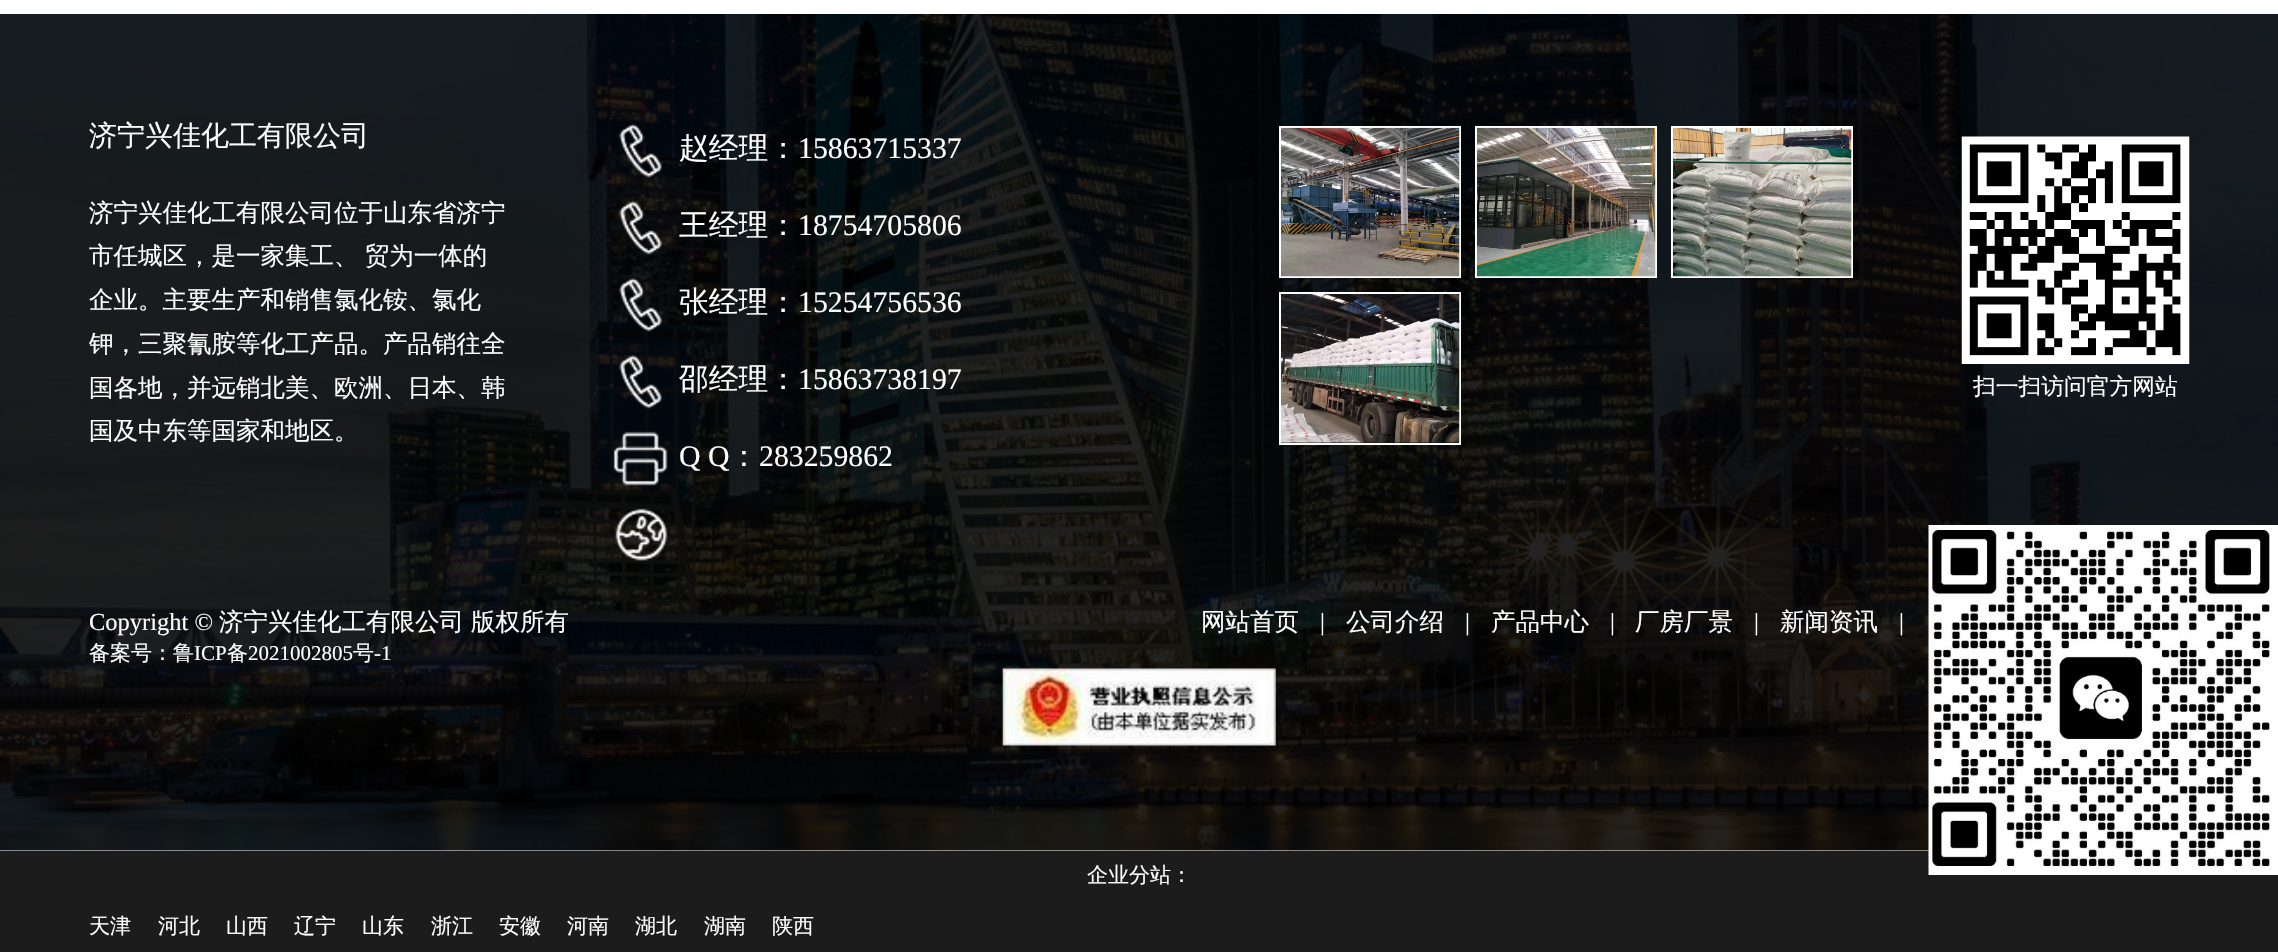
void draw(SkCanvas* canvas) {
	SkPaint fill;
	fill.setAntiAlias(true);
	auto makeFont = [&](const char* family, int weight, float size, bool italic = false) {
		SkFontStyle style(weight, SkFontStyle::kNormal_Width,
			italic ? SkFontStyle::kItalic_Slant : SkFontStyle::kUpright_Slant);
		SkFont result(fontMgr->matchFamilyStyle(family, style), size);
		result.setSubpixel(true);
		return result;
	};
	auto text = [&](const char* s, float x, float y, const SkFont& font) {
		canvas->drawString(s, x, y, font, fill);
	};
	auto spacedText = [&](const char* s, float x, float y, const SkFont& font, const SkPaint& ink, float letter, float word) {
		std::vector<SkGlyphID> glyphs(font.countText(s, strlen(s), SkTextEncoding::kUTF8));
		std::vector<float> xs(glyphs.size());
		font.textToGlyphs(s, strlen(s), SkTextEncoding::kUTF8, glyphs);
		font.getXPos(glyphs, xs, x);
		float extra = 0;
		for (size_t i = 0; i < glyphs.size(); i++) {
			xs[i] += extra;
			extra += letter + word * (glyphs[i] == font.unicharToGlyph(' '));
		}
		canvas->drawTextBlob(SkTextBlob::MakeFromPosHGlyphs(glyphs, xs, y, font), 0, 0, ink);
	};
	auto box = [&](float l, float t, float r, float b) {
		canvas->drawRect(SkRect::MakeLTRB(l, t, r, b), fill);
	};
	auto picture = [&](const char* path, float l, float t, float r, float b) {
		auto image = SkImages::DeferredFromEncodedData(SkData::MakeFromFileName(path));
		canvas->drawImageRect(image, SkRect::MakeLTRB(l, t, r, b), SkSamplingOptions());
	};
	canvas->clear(0xFFFFFFFF);
	picture("image0.png", 0, 14, 2278, 851);
	picture("image1.png", 619, 124, 662, 178);
	picture("image2.png", 619, 201, 662, 255);
	picture("image3.png", 619, 278, 662, 332);
	picture("image4.png", 619, 355, 662, 409);
	picture("image5.png", 613, 431, 668, 486);
	picture("image6.png", 615, 508, 668, 561);
	fill.setStyle(SkPaint::kStroke_Style);
	fill.setStrokeWidth(2);
	fill.setColor(0xFFFFFFFF);
	canvas->drawRect(SkRect::MakeLTRB(1280, 127, 1460, 277), fill);
	picture("image7.png", 1281, 127, 1460, 277);
	canvas->drawRect(SkRect::MakeLTRB(1476, 127, 1656, 277), fill);
	picture("image8.png", 1477, 127, 1656, 277);
	canvas->drawRect(SkRect::MakeLTRB(1672, 127, 1852, 277), fill);
	picture("image9.png", 1673, 127, 1852, 277);
	canvas->drawRect(SkRect::MakeLTRB(1280, 293, 1460, 444), fill);
	picture("image10.png", 1281, 294, 1460, 443);
	picture("image11.png", 1961, 136, 2190, 364);
	picture("image12.png", 1002, 668, 1276, 746);
	fill.setStyle(SkPaint::kFill_Style);
	fill.setColor(0xFF1C1C1C);
	box(0, 851, 2278, 952);
	picture("image13.png", 1928, 525, 2278, 875);
	auto font1 = makeFont("WenQuanYi Zen Hei", 500, 28);
	fill.setColor(0xFFFFFFFF);
	text("济宁兴佳化工有限公司", 89, 145, font1);
	auto font2 = makeFont("WenQuanYi Zen Hei", 500, 24.5f);
	text("济宁兴佳化工有限公司位于山东省济宁", 89, 221, font2);
	spacedText("市任城区，是一家集工、 贸为一体的", 89, 264, font2, fill, 0, -1);
	text("企业。主要生产和销售氯化铵、氯化", 89, 308, font2);
	text("钾，三聚氰胺等化工产品。产品销往全", 89, 352, font2);
	text("国各地，并远销北美、欧洲、日本、韩", 89, 396, font2);
	text("国及中东等国家和地区。", 89, 439, font2);
	auto font3 = makeFont("WenQuanYi Zen Hei", 500, 29.75f);
	text("赵经理：", 679, 158, font3);
	auto font4 = makeFont("Liberation Serif", 400, 29.75f);
	text("15863715337", 798, 158, font4);
	text("王经理：", 679, 235, font3);
	text("18754705806", 798, 235, font4);
	text("张经理：", 679, 312, font3);
	text("15254756536", 798, 312, font4);
	text("邵经理：", 679, 389, font3);
	text("15863738197", 798, 389, font4);
	text("Q Q", 679, 466, font4);
	text("：", 729, 466, font3);
	text("283259862", 759, 466, font4);
	auto font5 = makeFont("WenQuanYi Zen Hei", 500, 22.75f);
	text("扫一扫访问官方网站", 1973, 394, font5);
	auto font6 = makeFont("Liberation Serif", 400, 24.5f);
	text("Copyright ©", 89, 630, font6);
	text("济宁兴佳化工有限公司", 219, 630, font2);
	text("版权所有", 471, 630, font2);
	auto font7 = makeFont("WenQuanYi Zen Hei", 500, 21);
	text("备案号：鲁", 89, 660, font7);
	auto font8 = makeFont("Liberation Serif", 400, 21);
	text("ICP", 194, 660, font8);
	text("备", 227, 660, font7);
	text("2021002805", 248, 660, font8);
	text("号", 353, 660, font7);
	text("-1", 374, 660, font8);
	text("网站首页", 1201, 630, font2);
	text("|", 1320, 630, font6);
	text("公司介绍", 1346, 630, font2);
	text("|", 1465, 630, font6);
	text("产品中心", 1491, 630, font2);
	text("|", 1610, 630, font6);
	text("厂房厂景", 1635, 630, font2);
	text("|", 1754, 630, font6);
	text("新闻资讯", 1780, 630, font2);
	text("|", 1899, 630, font6);
	text("企业分站：", 1087, 882, font7);
	text("天津", 89, 933, font7);
	text("河北", 158, 933, font7);
	text("山西", 226, 933, font7);
	text("辽宁", 294, 933, font7);
	text("山东", 362, 933, font7);
	text("浙江", 431, 933, font7);
	text("安徽", 499, 933, font7);
	text("河南", 567, 933, font7);
	text("湖北", 635, 933, font7);
	text("湖南", 704, 933, font7);
	text("陕西", 772, 933, font7);
}
